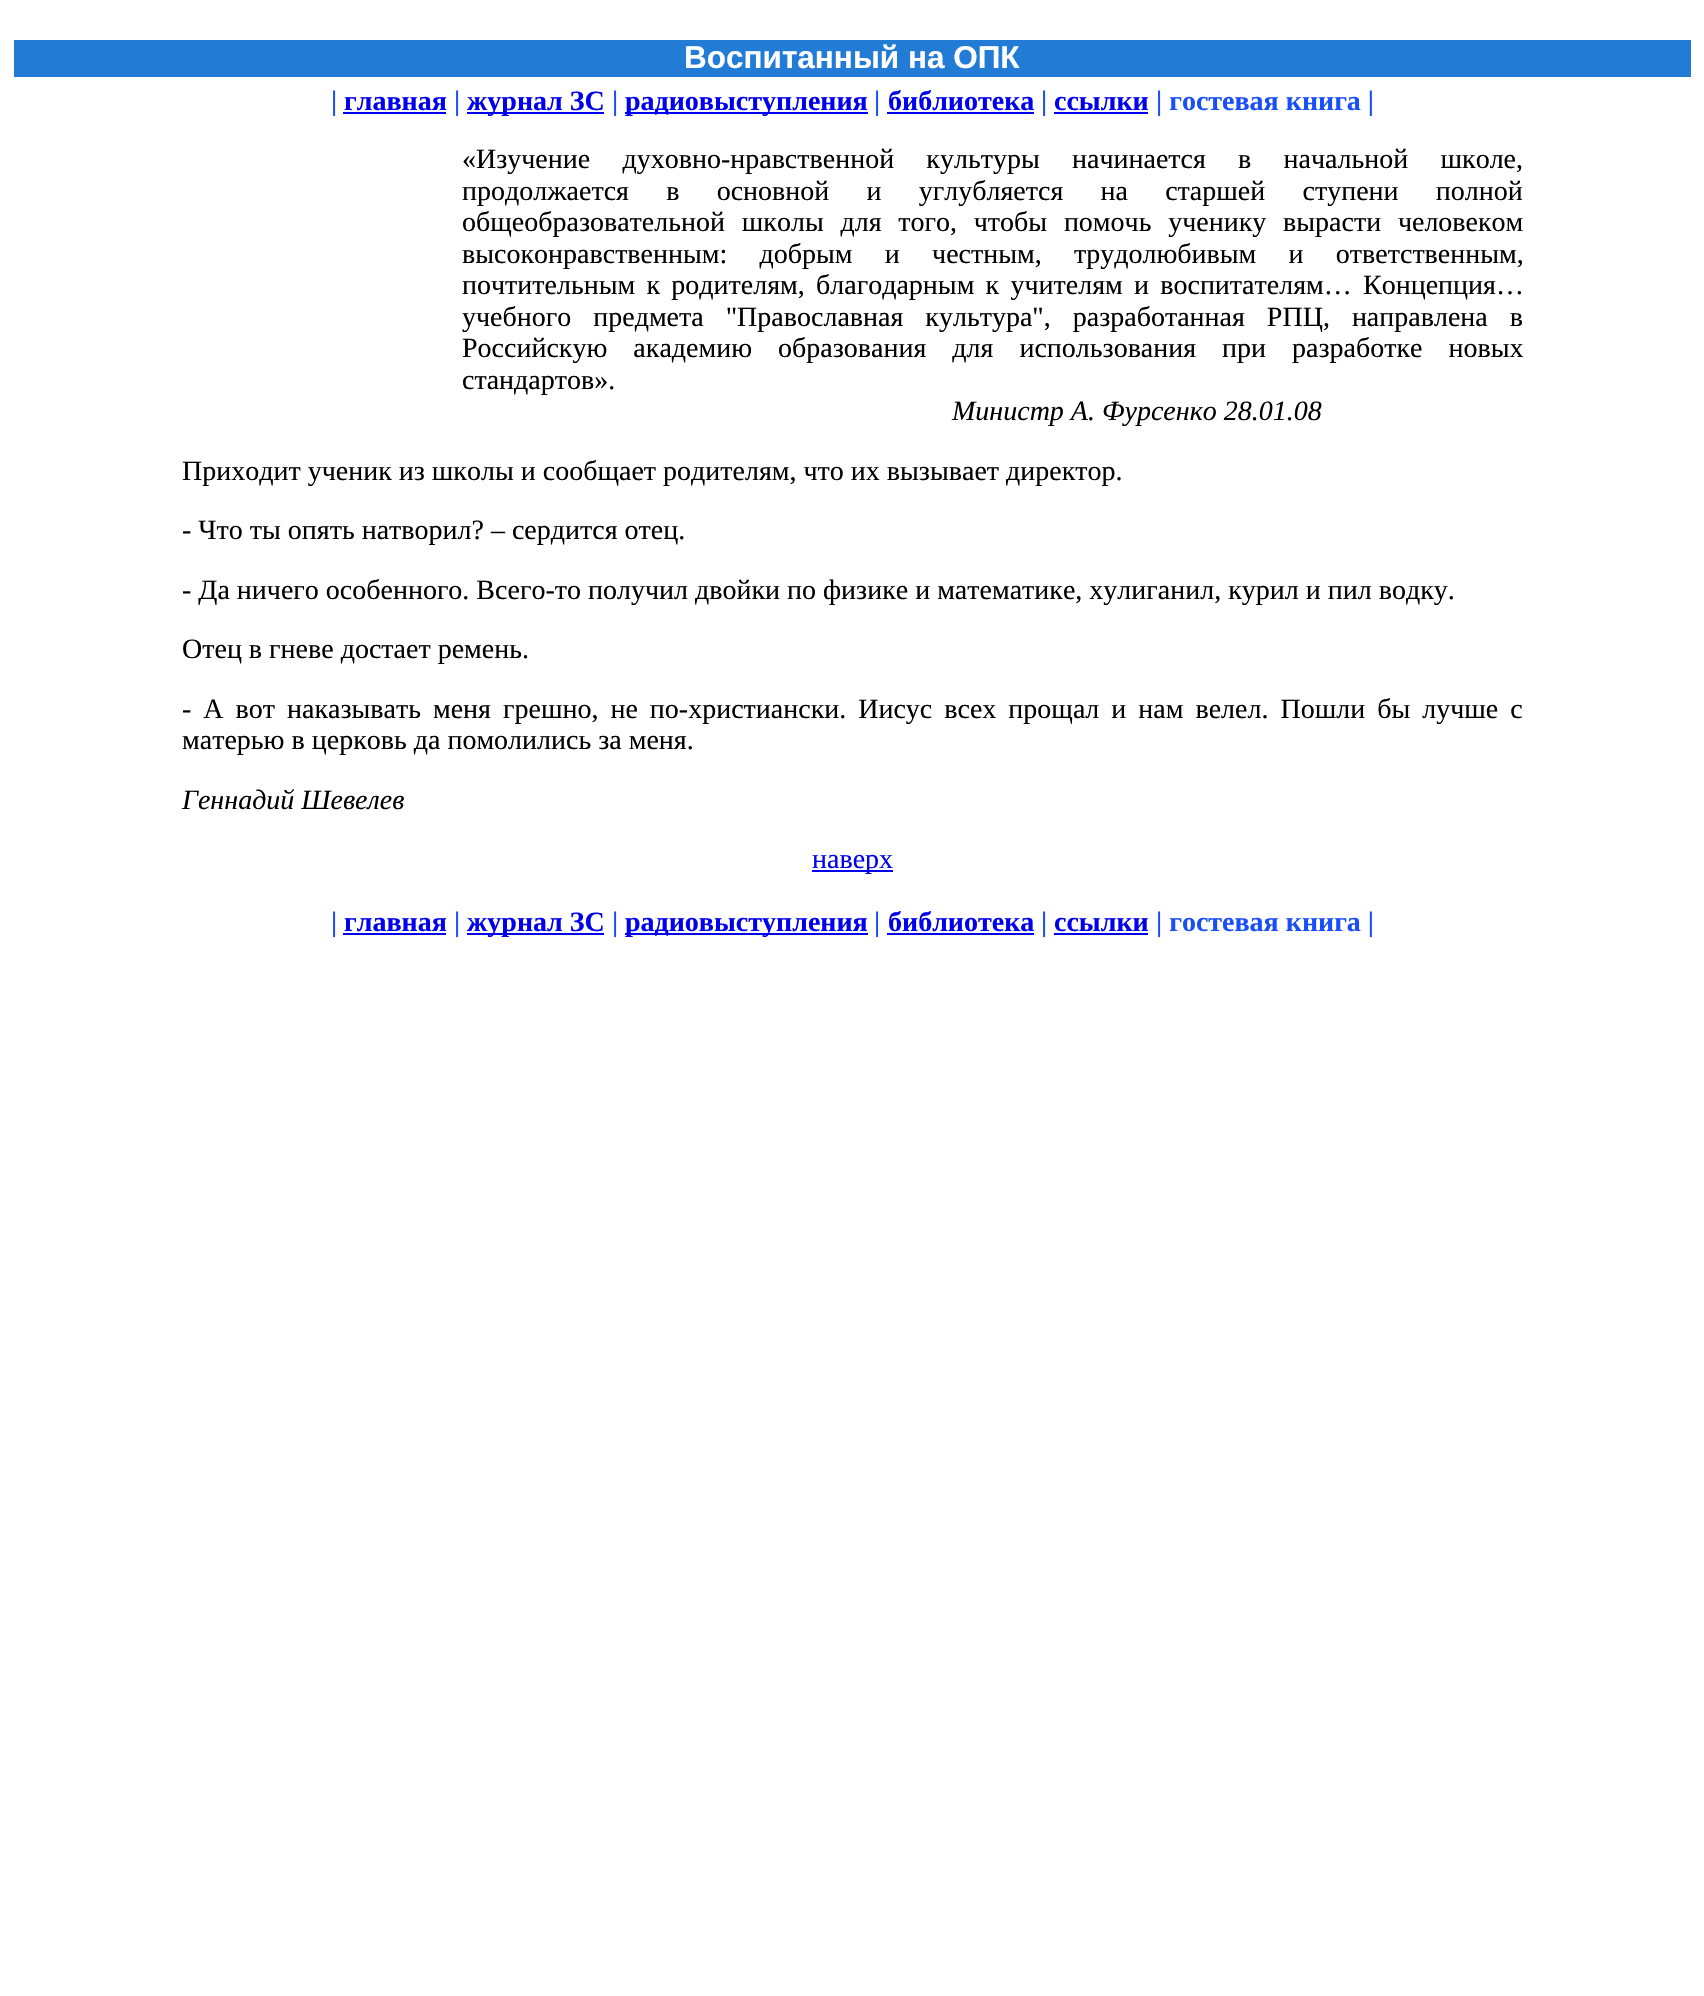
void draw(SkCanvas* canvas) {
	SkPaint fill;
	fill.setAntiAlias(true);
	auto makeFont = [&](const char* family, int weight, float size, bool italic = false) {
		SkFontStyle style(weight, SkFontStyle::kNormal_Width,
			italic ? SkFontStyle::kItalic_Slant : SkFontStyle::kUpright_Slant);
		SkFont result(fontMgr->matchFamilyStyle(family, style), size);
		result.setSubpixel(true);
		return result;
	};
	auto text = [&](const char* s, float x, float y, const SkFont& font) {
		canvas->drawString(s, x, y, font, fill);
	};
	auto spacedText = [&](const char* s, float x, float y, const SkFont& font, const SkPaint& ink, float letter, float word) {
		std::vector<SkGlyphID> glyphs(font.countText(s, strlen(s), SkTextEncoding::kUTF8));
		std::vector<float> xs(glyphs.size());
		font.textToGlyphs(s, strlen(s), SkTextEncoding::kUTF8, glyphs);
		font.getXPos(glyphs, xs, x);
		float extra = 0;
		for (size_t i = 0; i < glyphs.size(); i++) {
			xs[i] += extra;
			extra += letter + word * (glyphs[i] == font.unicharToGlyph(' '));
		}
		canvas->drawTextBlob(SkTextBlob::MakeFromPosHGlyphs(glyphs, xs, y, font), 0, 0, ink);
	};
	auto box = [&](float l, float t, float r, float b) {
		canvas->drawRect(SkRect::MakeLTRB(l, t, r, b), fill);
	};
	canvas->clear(0xFFFFFFFF);
	fill.setColor(0xFF227BD5);
	box(14, 40, 1691, 77);
	fill.setColor(0xFF0000EE);
	box(343, 112, 446, 114);
	box(467, 112, 604, 114);
	box(625, 112, 868, 114);
	box(887, 112, 1034, 114);
	box(1054, 112, 1148, 114);
	box(812, 870, 893, 872);
	box(343, 933, 446, 935);
	box(467, 933, 604, 935);
	box(625, 933, 868, 935);
	box(887, 933, 1034, 935);
	box(1054, 933, 1148, 935);
	auto font1 = makeFont("Liberation Sans", 700, 31.5f);
	fill.setColor(0xFFFFFFFF);
	text("Воспитанный на ОПК", 684, 68, font1);
	auto font2 = makeFont("Liberation Serif", 700, 28);
	fill.setColor(0xFF1A4EF7);
	text("|", 331, 110, font2);
	fill.setColor(0xFF0000EE);
	text("главная", 344, 110, font2);
	fill.setColor(0xFF1A4EF7);
	text("|", 454, 110, font2);
	fill.setColor(0xFF0000EE);
	text("журнал ЗС", 467, 110, font2);
	fill.setColor(0xFF1A4EF7);
	text("|", 612, 110, font2);
	fill.setColor(0xFF0000EE);
	text("радиовыступления", 625, 110, font2);
	fill.setColor(0xFF1A4EF7);
	text("|", 874, 110, font2);
	fill.setColor(0xFF0000EE);
	text("библиотека", 888, 110, font2);
	fill.setColor(0xFF1A4EF7);
	text("|", 1041, 110, font2);
	fill.setColor(0xFF0000EE);
	text("ссылки", 1054, 110, font2);
	fill.setColor(0xFF1A4EF7);
	text("| гостевая книга |", 1156, 110, font2);
	auto font3 = makeFont("Liberation Serif", 400, 28);
	fill.setColor(0xFF000000);
	spacedText("«Изучение духовно-нравственной культуры начинается в начальной школе,", 462, 168, font3, fill, 0, 25.25f);
	spacedText("продолжается в основной и углубляется на старшей ступени полной", 462, 200, font3, fill, 0, 30.25f);
	spacedText("общеобразовательной школы для того, чтобы помочь ученику вырасти человеком", 462, 231, font3, fill, 0, 9.75f);
	spacedText("высоконравственным: добрым и честным, трудолюбивым и ответственным,", 462, 263, font3, fill, 0, 25.25f);
	spacedText("почтительным к родителям, благодарным к учителям и воспитателям… Концепция…", 462, 294, font3, fill, 0, 4.25f);
	spacedText("учебного предмета \"Православная культура\", разработанная РПЦ, направлена в", 462, 326, font3, fill, 0, 15);
	spacedText("Российскую академию образования для использования при разработке новых", 462, 357, font3, fill, 0, 19);
	text("стандартов».", 462, 389, font3);
	auto font4 = makeFont("Liberation Serif", 400, 28, true);
	text("Министр А. Фурсенко 28.01.08", 952, 420, font4);
	text("Приходит ученик из школы и сообщает родителям, что их вызывает директор.", 182, 480, font3);
	text("- Что ты опять натворил? – сердится отец.", 182, 539, font3);
	text("- Да ничего особенного. Всего-то получил двойки по физике и математике, хулиганил, курил и пил водку.", 182, 599, font3);
	text("Отец в гневе достает ремень.", 182, 658, font3);
	spacedText("- А вот наказывать меня грешно, не по-христиански. Иисус всех прощал и нам велел. Пошли бы лучше с", 182, 718, font3, fill, 0, 5);
	text("матерью в церковь да помолились за меня.", 182, 749, font3);
	text("Геннадий Шевелев", 182, 809, font4);
	fill.setColor(0xFF0000EE);
	text("наверх", 812, 868, font3);
	fill.setColor(0xFF1A4EF7);
	text("|", 331, 931, font2);
	fill.setColor(0xFF0000EE);
	text("главная", 344, 931, font2);
	fill.setColor(0xFF1A4EF7);
	text("|", 454, 931, font2);
	fill.setColor(0xFF0000EE);
	text("журнал ЗС", 467, 931, font2);
	fill.setColor(0xFF1A4EF7);
	text("|", 612, 931, font2);
	fill.setColor(0xFF0000EE);
	text("радиовыступления", 625, 931, font2);
	fill.setColor(0xFF1A4EF7);
	text("|", 874, 931, font2);
	fill.setColor(0xFF0000EE);
	text("библиотека", 888, 931, font2);
	fill.setColor(0xFF1A4EF7);
	text("|", 1041, 931, font2);
	fill.setColor(0xFF0000EE);
	text("ссылки", 1054, 931, font2);
	fill.setColor(0xFF1A4EF7);
	text("| гостевая книга |", 1156, 931, font2);
}
